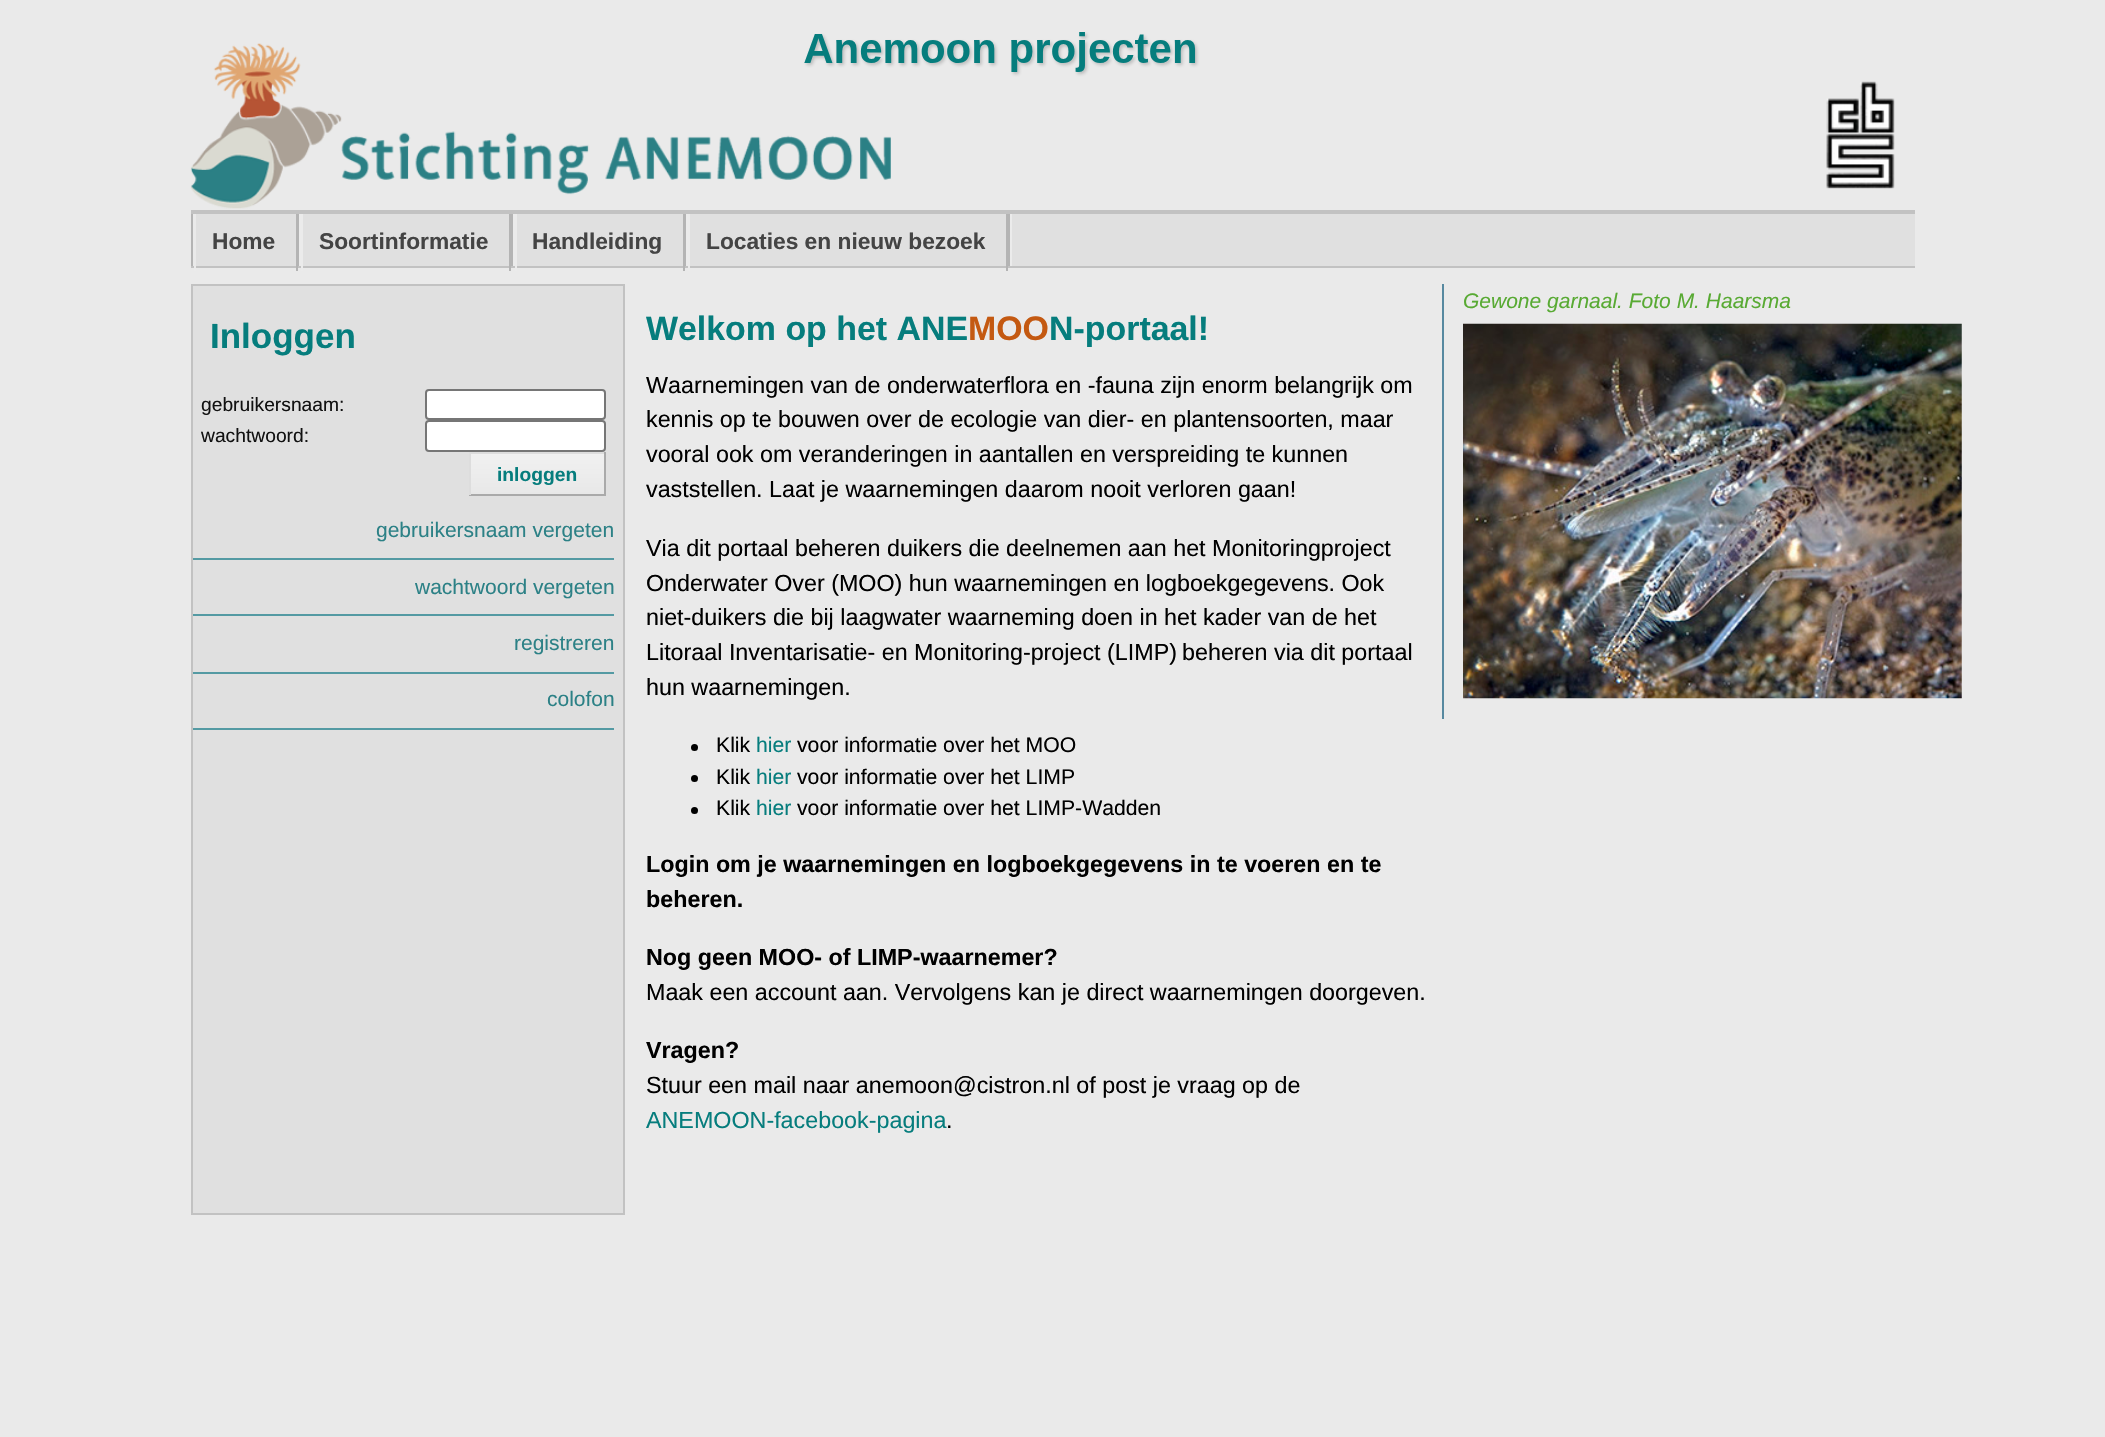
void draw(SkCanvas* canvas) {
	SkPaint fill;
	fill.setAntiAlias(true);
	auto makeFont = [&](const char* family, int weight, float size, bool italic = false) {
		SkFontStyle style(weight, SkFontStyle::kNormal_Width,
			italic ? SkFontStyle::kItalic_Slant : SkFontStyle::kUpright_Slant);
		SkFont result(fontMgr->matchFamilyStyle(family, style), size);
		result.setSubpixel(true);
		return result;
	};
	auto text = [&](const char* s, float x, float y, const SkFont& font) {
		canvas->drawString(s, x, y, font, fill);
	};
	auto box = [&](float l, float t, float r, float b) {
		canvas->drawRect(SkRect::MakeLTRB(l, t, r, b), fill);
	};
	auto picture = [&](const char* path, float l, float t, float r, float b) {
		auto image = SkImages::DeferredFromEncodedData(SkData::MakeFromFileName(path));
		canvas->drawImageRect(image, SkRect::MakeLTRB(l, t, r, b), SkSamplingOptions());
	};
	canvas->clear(0xFFEAEAEA);
	picture("image0.png", 190, 32, 1895, 209);
	fill.setColor(0xFFC2C2C2);
	box(191, 210, 1915, 214);
	fill.setColor(0xFFE0E0E0);
	box(196, 214, 1915, 266);
	fill.setColor(0xFFC2C2C2);
	box(191, 266, 1915, 268);
	fill.setColor(0xFFEBEBEB);
	box(1010, 214, 1012, 266);
	fill.setColor(0xFFB4B4B4);
	box(191, 214, 193, 266);
	box(298, 214, 299, 266);
	box(296, 214, 298, 271);
	fill.setColor(0xFFEBEBEB);
	box(194, 266, 196, 271);
	fill.setColor(0xFFB4B4B4);
	box(511, 214, 513, 266);
	fill.setColor(0xFFEBEBEB);
	box(299, 214, 301, 266);
	fill.setColor(0xFFB4B4B4);
	box(509, 214, 511, 271);
	fill.setColor(0xFFEBEBEB);
	box(301, 214, 303, 271);
	fill.setColor(0xFFB4B4B4);
	box(685, 214, 686, 266);
	fill.setColor(0xFFEBEBEB);
	box(513, 214, 515, 266);
	fill.setColor(0xFFB4B4B4);
	box(683, 214, 685, 271);
	fill.setColor(0xFFEBEBEB);
	box(515, 214, 517, 271);
	fill.setColor(0xFFB4B4B4);
	box(1008, 214, 1010, 266);
	fill.setColor(0xFFEBEBEB);
	box(686, 214, 688, 266);
	fill.setColor(0xFFB4B4B4);
	box(1006, 214, 1008, 271);
	fill.setColor(0xFFEBEBEB);
	box(688, 214, 690, 271);
	fill.setColor(0xFFE0E0E0);
	canvas->drawRect(SkRect::MakeLTRB(192, 285, 624, 1214), fill);
	fill.setStyle(SkPaint::kStroke_Style);
	fill.setStrokeWidth(2);
	fill.setColor(0xFFC2C2C2);
	canvas->drawRect(SkRect::MakeLTRB(192, 285, 624, 1214), fill);
	fill.setStyle(SkPaint::kFill_Style);
	fill.setColor(0xFFFFFFFF);
	canvas->drawRoundRect(SkRect::MakeLTRB(426, 390, 605, 419), 3, 3, fill);
	fill.setStyle(SkPaint::kStroke_Style);
	fill.setColor(0xFF767676);
	canvas->drawRoundRect(SkRect::MakeLTRB(426, 390, 605, 419), 3, 3, fill);
	fill.setStyle(SkPaint::kFill_Style);
	fill.setColor(0xFFFFFFFF);
	canvas->drawRoundRect(SkRect::MakeLTRB(426, 421, 605, 451), 3, 3, fill);
	fill.setStyle(SkPaint::kStroke_Style);
	fill.setColor(0xFF767676);
	canvas->drawRoundRect(SkRect::MakeLTRB(426, 421, 605, 451), 3, 3, fill);
	fill.setStyle(SkPaint::kFill_Style);
	{
		const SkColor colors[] = {0xFFF1F1F1, 0xFFE8E8E8};
		const float stops[] = {0, 1};
		const SkPoint ends[] = {{471, 453}, {471, 494}};
		fill.setShader(SkGradientShader::MakeLinear(ends, colors, stops, 2, SkTileMode::kClamp));
		fill.setAlpha(255);
	}
	box(471, 454, 604, 494);
	fill.setShader(nullptr);
	fill.setColor(0xFFDDDDDD);
	box(469, 452, 606, 454);
	fill.setColor(0xFFAAAAAA);
	box(604, 452, 606, 495);
	box(469, 494, 606, 496);
	fill.setColor(0xFFDDDDDD);
	box(469, 452, 471, 495);
	fill.setColor(0xFF549AA3);
	box(193, 558, 614, 560);
	box(193, 614, 614, 616);
	box(193, 672, 614, 674);
	box(193, 728, 614, 730);
	fill.setColor(0xFF5789A0);
	box(1442, 284, 1444, 719);
	picture("image1.png", 1463, 323, 1962, 699);
	fill.setColor(0xFF000000);
	canvas->drawCircle(694.5f, 747.5f, 3.5f, fill);
	canvas->drawCircle(694.5f, 778.5f, 3.5f, fill);
	canvas->drawCircle(694.5f, 810.5f, 3.5f, fill);
	auto font1 = makeFont("Liberation Sans", 700, 22.75f);
	fill.setColor(0xFF444444);
	text("Home", 212, 249, font1);
	text("Soortinformatie", 319, 249, font1);
	text("Handleiding", 532, 249, font1);
	text("Locaties en nieuw bezoek", 706, 249, font1);
	auto font2 = makeFont("Liberation Sans", 700, 35);
	fill.setColor(0xFF067D7D);
	text("Inloggen", 210, 348, font2);
	auto font3 = makeFont("Liberation Sans", 400, 19.25f);
	fill.setColor(0xFF111111);
	text("gebruikersnaam:", 201, 411, font3);
	text("wachtwoord:", 201, 442, font3);
	auto font4 = makeFont("Liberation Sans", 700, 19.25f);
	fill.setColor(0xFF067D7D);
	text("inloggen", 497, 481, font4);
	auto font5 = makeFont("Liberation Sans", 400, 21);
	fill.setColor(0xFF2C8186);
	text("gebruikersnaam vergeten", 376, 537, font5);
	text("wachtwoord vergeten", 415, 594, font5);
	text("registreren", 514, 650, font5);
	text("colofon", 547, 706, font5);
	auto font6 = makeFont("Liberation Sans", 400, 21, true);
	fill.setColor(0xFF58AA33);
	text("Gewone garnaal. Foto M. Haarsma", 1463, 308, font6);
	auto font7 = makeFont("Liberation Sans", 700, 33.9f);
	fill.setColor(0xFF067D7D);
	text("Welkom op het ANE", 646, 340, font7);
	fill.setColor(0xFFC45911);
	text("MOO", 968, 340, font7);
	fill.setColor(0xFF067D7D);
	text("N-portaal!", 1049, 340, font7);
	auto font8 = makeFont("Liberation Sans", 400, 23.3f);
	fill.setColor(0xFF000000);
	text("Waarnemingen van de onderwaterflora en -fauna zijn enorm belangrijk om", 646, 393, font8);
	text("kennis op te bouwen over de ecologie van dier- en plantensoorten, maar", 646, 427, font8);
	text("vooral ook om veranderingen in aantallen en verspreiding te kunnen", 646, 462, font8);
	text("vaststellen. Laat je waarnemingen daarom nooit verloren gaan!", 646, 497, font8);
	text("Via dit portaal beheren duikers die deelnemen aan het Monitoringproject", 646, 556, font8);
	text("Onderwater Over (MOO) hun waarnemingen en logboekgegevens. Ook", 646, 591, font8);
	text("niet-duikers die bij laagwater waarneming doen in het kader van de het", 646, 625, font8);
	text("Litoraal Inventarisatie- en Monitoring-project (LIMP)", 646, 660, font8);
	text("beheren via dit portaal", 1182, 660, font8);
	text("hun waarnemingen.", 646, 695, font8);
	auto font9 = makeFont("Liberation Sans", 400, 21.2f);
	text("Klik", 716, 752, font9);
	fill.setColor(0xFF067D7D);
	text("hier", 756, 752, font9);
	fill.setColor(0xFF000000);
	text("voor informatie over het MOO", 797, 752, font9);
	text("Klik", 716, 784, font9);
	fill.setColor(0xFF067D7D);
	text("hier", 756, 784, font9);
	fill.setColor(0xFF000000);
	text("voor informatie over het LIMP", 797, 784, font9);
	text("Klik", 716, 815, font9);
	fill.setColor(0xFF067D7D);
	text("hier", 756, 815, font9);
	fill.setColor(0xFF000000);
	text("voor informatie over het LIMP-Wadden", 797, 815, font9);
	auto font10 = makeFont("Liberation Sans", 700, 23.3f);
	text("Login om je waarnemingen en logboekgegevens in te voeren en te", 646, 872, font10);
	text("beheren.", 646, 907, font10);
	text("Nog geen MOO- of LIMP-waarnemer?", 646, 965, font10);
	text("Maak een account aan. Vervolgens kan je direct waarnemingen doorgeven.", 646, 1000, font8);
	text("Vragen?", 646, 1058, font10);
	text("Stuur een mail naar anemoon@cistron.nl of post je vraag op de", 646, 1093, font8);
	fill.setColor(0xFF067D7D);
	text("ANEMOON-facebook-pagina", 646, 1128, font8);
	fill.setColor(0xFF000000);
	text(".", 946, 1128, font8);
}
